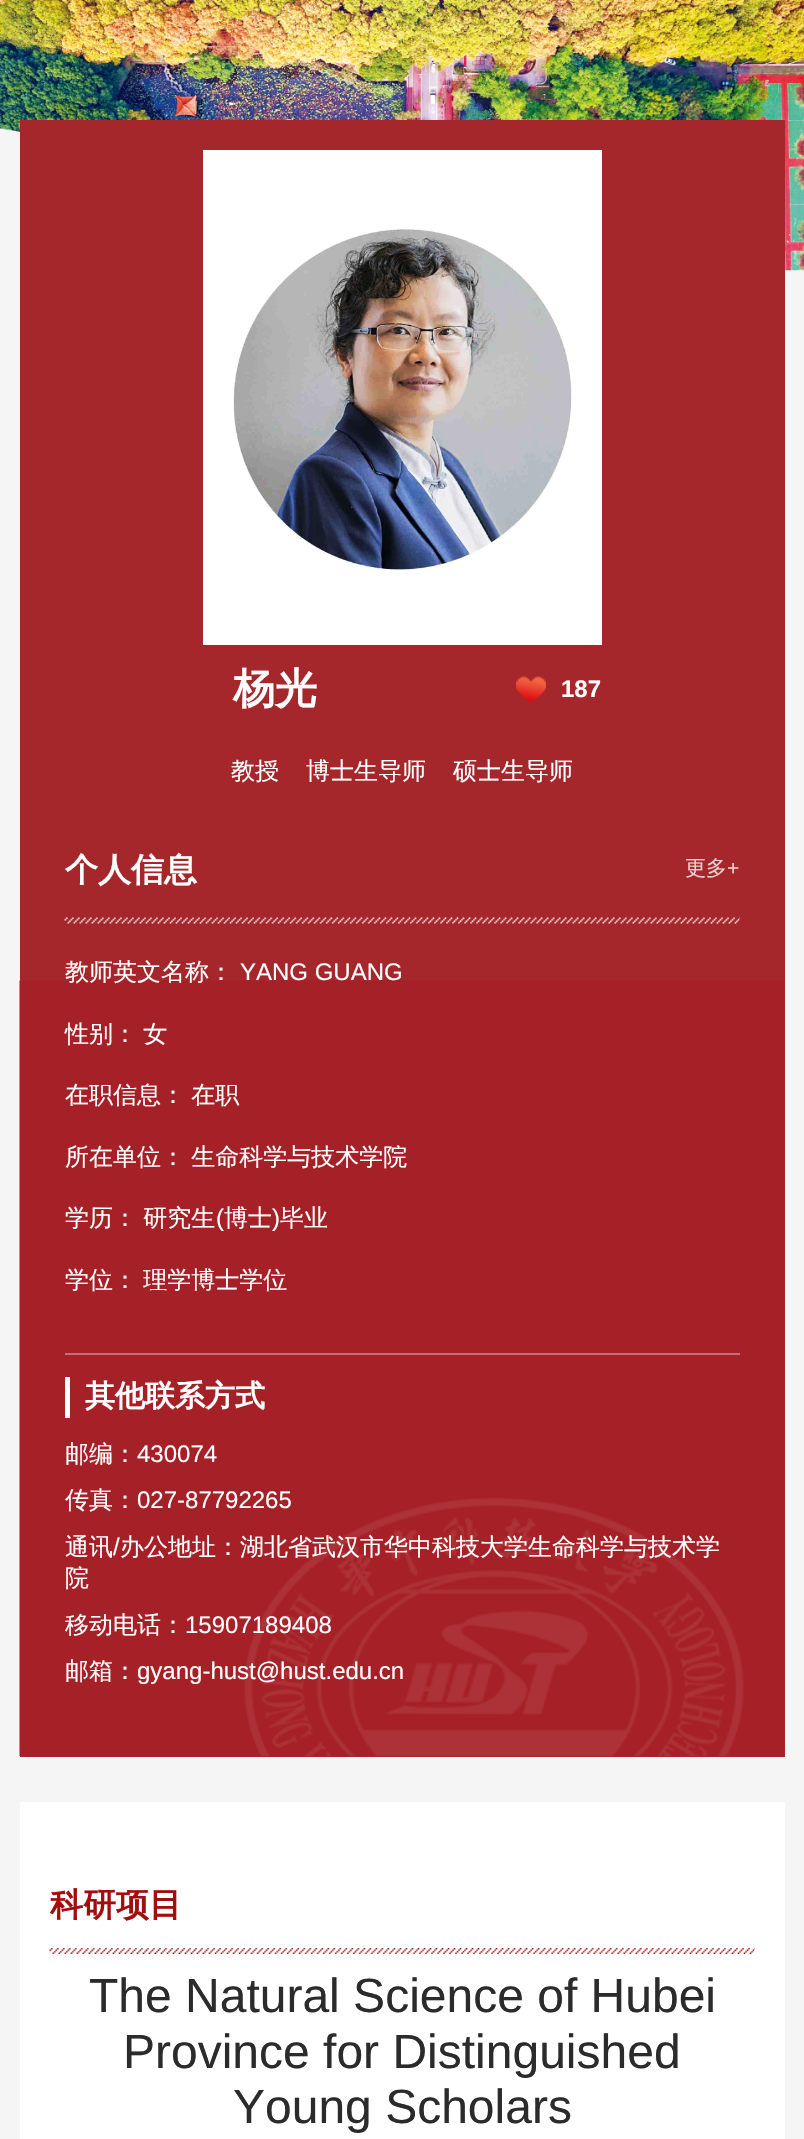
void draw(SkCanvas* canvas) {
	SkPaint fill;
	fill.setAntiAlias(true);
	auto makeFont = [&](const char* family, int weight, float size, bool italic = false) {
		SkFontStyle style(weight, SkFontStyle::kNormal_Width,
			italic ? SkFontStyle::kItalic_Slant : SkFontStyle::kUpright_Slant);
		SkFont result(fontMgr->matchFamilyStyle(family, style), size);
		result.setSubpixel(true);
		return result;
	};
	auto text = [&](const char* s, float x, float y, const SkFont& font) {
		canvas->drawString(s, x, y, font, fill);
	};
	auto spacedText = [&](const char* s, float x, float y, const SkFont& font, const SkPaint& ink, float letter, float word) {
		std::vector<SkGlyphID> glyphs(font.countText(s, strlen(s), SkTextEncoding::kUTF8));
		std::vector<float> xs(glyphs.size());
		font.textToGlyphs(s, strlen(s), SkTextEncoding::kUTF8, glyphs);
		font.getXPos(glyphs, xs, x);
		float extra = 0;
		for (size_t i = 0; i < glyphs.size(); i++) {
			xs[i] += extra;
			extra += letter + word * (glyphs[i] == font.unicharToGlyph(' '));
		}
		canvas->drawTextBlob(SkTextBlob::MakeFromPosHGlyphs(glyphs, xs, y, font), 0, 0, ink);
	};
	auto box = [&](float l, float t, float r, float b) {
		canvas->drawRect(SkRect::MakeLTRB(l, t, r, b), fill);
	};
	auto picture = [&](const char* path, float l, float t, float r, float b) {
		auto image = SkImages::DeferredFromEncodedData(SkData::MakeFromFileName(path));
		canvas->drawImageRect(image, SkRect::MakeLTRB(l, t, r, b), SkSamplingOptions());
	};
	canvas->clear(0xFFF5F5F5);
	picture("image0.png", 0, 0, 804, 271);
	picture("image1.png", 0, 128, 20, 271);
	fill.setColor(0xFFA5262B);
	box(20, 120, 785, 1757);
	picture("image2.png", 19, 980, 784, 1756);
	fill.setColor(0xFFFFFFFF);
	box(203, 150, 602, 645);
	picture("image3.png", 233, 229, 572, 570);
	picture("image4.png", 516, 676, 546, 703);
	fill.setColor(0xFFBF7275);
	box(65, 1353, 740, 1355);
	picture("image5.png", 64, 917, 740, 924);
	fill.setColor(0xFFFFFFFF);
	box(65, 1377, 70, 1418);
	box(20, 1802, 785, 2139);
	picture("image6.png", 49, 1948, 755, 1954);
	auto font1 = makeFont("WenQuanYi Zen Hei", 700, 42);
	text("杨光", 233, 703, font1);
	auto font2 = makeFont("Liberation Sans", 700, 24);
	text("187", 561, 697, font2);
	auto font3 = makeFont("WenQuanYi Zen Hei", 500, 24);
	text("教授", 231, 779, font3);
	text("博士生导师", 306, 779, font3);
	text("硕士生导师", 453, 779, font3);
	auto font4 = makeFont("WenQuanYi Zen Hei", 700, 33);
	text("个人信息", 65, 881, font4);
	auto font5 = makeFont("WenQuanYi Zen Hei", 500, 21);
	fill.setColor(0xFFECD0D1);
	text("更多", 685, 875, font5);
	auto font6 = makeFont("Liberation Sans", 400, 21);
	text("+", 727, 875, font6);
	fill.setColor(0xFFFFFFFF);
	text("教师英文名称：", 65, 980, font3);
	auto font7 = makeFont("Liberation Sans", 400, 24);
	text("YANG GUANG", 240, 980, font7);
	spacedText("性别： 女", 65, 1042, font3, fill, 0, -1);
	spacedText("在职信息： 在职", 65, 1103, font3, fill, 0, -1);
	spacedText("所在单位： 生命科学与技术学院", 65, 1165, font3, fill, 0, -1);
	spacedText("学历： 研究生", 65, 1226, font3, fill, 0, -1);
	text("(", 216, 1226, font7);
	text("博士", 224, 1226, font3);
	text(")", 272, 1226, font7);
	text("毕业", 280, 1226, font3);
	spacedText("学位： 理学博士学位", 65, 1288, font3, fill, 0, -1);
	auto font8 = makeFont("WenQuanYi Zen Hei", 700, 30);
	text("其他联系方式", 85, 1406, font8);
	text("邮编：", 65, 1462, font3);
	text("430074", 137, 1462, font7);
	text("传真：", 65, 1508, font3);
	text("027-87792265", 137, 1508, font7);
	text("通讯", 65, 1555, font3);
	text("/", 113, 1555, font7);
	text("办公地址：湖北省武汉市华中科技大学生命科学与技术学", 120, 1555, font3);
	text("院", 65, 1586, font3);
	text("移动电话：", 65, 1633, font3);
	text("15907189408", 185, 1633, font7);
	text("邮箱：", 65, 1679, font3);
	text("gyang-hust@hust.edu.cn", 137, 1679, font7);
	fill.setColor(0xFFA40D0D);
	text("科研项目", 50, 1916, font4);
	auto font9 = makeFont("Liberation Sans", 400, 48);
	fill.setColor(0xFF2B2B2B);
	text("The Natural Science of Hubei", 89, 2012, font9);
	text("Province for Distinguished", 123, 2068, font9);
	text("Young Scholars", 233, 2123, font9);
}
